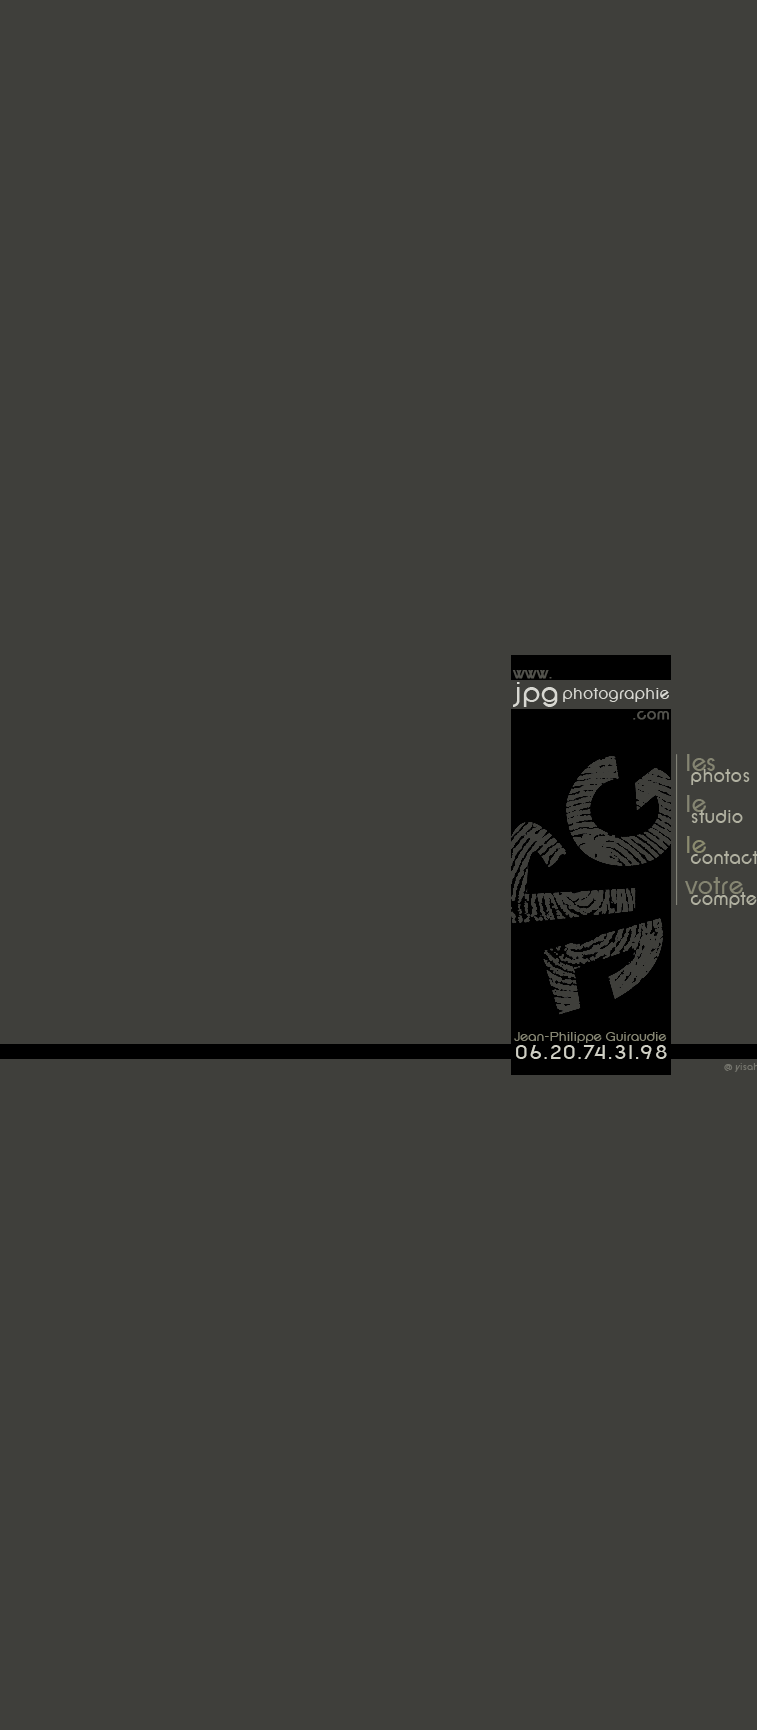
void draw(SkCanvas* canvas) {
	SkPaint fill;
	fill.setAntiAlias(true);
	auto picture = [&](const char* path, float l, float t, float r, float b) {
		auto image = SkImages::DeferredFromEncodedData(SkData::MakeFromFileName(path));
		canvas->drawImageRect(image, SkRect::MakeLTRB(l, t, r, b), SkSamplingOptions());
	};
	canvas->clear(0xFF3F3F3B);
	picture("image0.png", 0, 655, 757, 1075);
	picture("image1.png", 514, 1032, 667, 1059);
	picture("image2.png", 676, 754, 750, 790);
	picture("image3.png", 676, 790, 743, 830);
	picture("image4.png", 676, 830, 757, 870);
	picture("image5.png", 676, 870, 757, 908);
	picture("image6.png", 724, 1063, 757, 1072);
}
